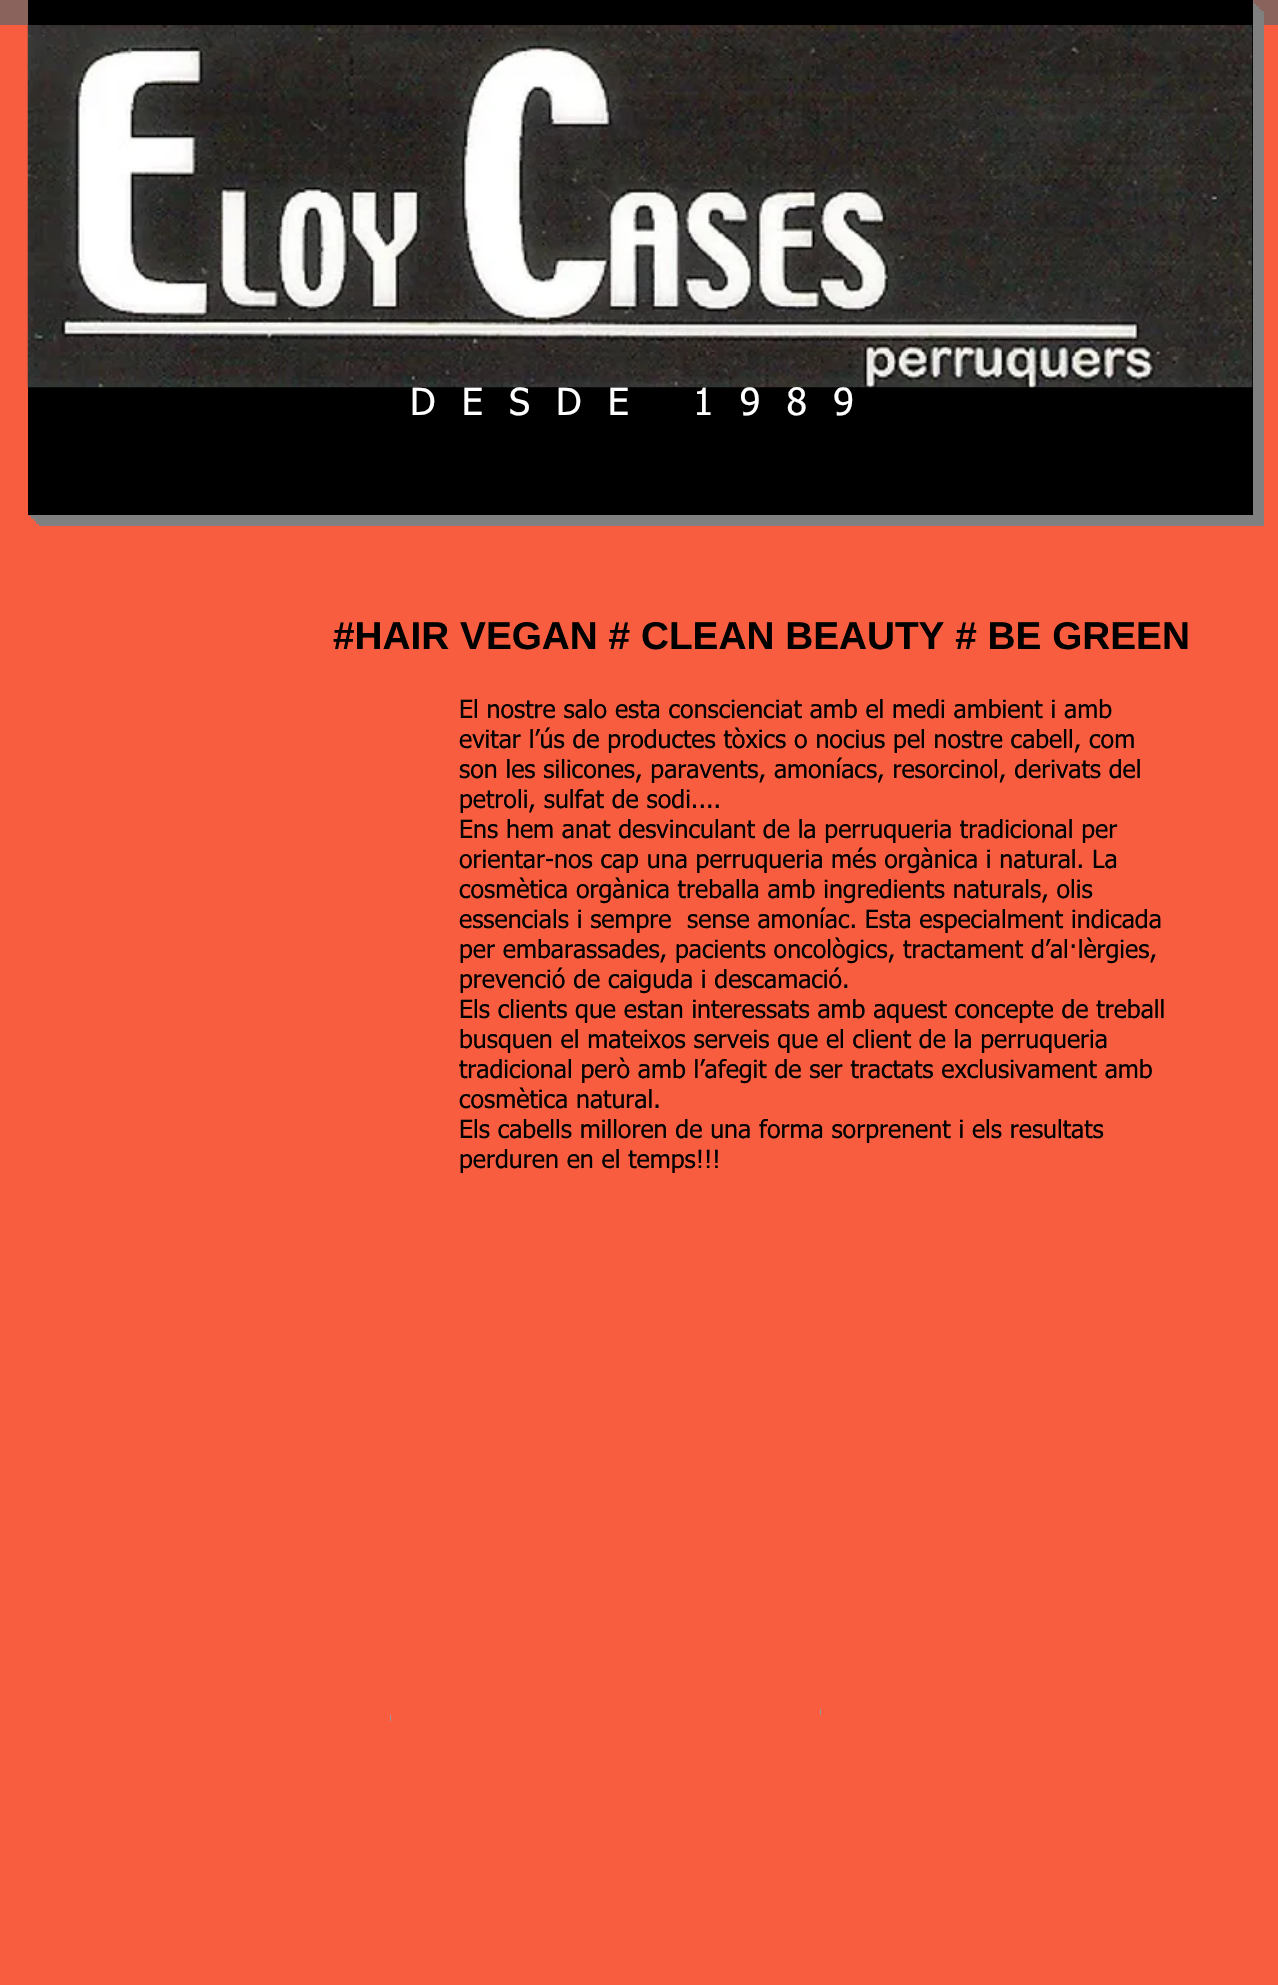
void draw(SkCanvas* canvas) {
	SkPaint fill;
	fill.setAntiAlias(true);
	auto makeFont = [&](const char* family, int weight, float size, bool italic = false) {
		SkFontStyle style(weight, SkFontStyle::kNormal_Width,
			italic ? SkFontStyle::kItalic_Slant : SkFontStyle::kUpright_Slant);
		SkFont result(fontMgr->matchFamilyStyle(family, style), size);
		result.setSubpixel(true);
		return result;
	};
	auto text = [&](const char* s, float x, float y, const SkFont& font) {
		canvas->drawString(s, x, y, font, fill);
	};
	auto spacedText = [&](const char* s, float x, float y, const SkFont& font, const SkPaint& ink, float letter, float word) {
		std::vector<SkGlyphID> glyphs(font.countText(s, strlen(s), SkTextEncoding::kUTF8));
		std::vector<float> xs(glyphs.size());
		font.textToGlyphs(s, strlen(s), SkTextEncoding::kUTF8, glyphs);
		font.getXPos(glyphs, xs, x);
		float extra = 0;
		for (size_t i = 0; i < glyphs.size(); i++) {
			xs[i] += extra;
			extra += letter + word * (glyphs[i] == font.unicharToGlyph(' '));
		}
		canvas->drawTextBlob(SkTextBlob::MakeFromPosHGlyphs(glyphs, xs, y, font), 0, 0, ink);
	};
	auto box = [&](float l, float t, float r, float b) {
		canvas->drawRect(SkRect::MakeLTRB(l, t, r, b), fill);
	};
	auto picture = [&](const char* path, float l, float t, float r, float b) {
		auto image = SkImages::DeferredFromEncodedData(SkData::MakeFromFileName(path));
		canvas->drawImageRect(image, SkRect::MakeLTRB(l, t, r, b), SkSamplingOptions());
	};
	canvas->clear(0xFFF75D3E);
	fill.setColor(0xFF8A645C);
	box(0, 0, 1278, 25);
	fill.setColor(0xFF808080);
	canvas->drawPath(SkPathBuilder().moveTo(39, 515).lineTo(39, 526).lineTo(1264, 526).lineTo(1264, 11).lineTo(1252, 11).lineTo(1252, 515).close().detach(), fill);
	canvas->drawPath(SkPathBuilder().moveTo(36, 515).lineTo(36, 524).lineTo(1261, 524).lineTo(1261, 9).lineTo(1252, 9).lineTo(1252, 515).close().detach(), fill);
	canvas->drawPath(SkPathBuilder().moveTo(34, 515).lineTo(34, 521).lineTo(1259, 521).lineTo(1259, 6).lineTo(1252, 6).lineTo(1252, 515).close().detach(), fill);
	canvas->drawPath(SkPathBuilder().moveTo(31, 515).lineTo(31, 519).lineTo(1256, 519).lineTo(1256, 4).lineTo(1252, 4).lineTo(1252, 515).close().detach(), fill);
	canvas->drawPath(SkPathBuilder().moveTo(29, 515).lineTo(29, 516).lineTo(1254, 516).lineTo(1254, 1).lineTo(1252, 1).lineTo(1252, 515).close().detach(), fill);
	fill.setColor(0xFF000000);
	box(28, 0, 1253, 515);
	picture("image0.png", 27, 25, 1253, 388);
	fill.setColor(0xFF999999);
	box(820, 1709, 821, 1715);
	box(390, 1715, 391, 1721);
	auto font1 = makeFont("tahoma", 400, 37.5f);
	fill.setColor(0xFFFFFFFF);
	spacedText("DESDE 1989", 410, 415, font1, fill, 26.25f, 0);
	auto font2 = makeFont("Liberation Sans", 700, 38.75f);
	fill.setColor(0xFF000000);
	text("#HAIR VEGAN # CLEAN BEAUTY # BE GREEN", 333, 649, font2);
	auto font3 = makeFont("tahoma", 400, 25);
	text("El nostre salo esta conscienciat amb el medi ambient i amb", 459, 718, font3);
	text("evitar l’ús de productes tòxics o nocius pel nostre cabell, com", 459, 748, font3);
	text("son les silicones, paravents, amoníacs, resorcinol, derivats del", 459, 778, font3);
	text("petroli, sulfat de sodi....", 459, 808, font3);
	text("Ens hem anat desvinculant de la perruqueria tradicional per", 459, 838, font3);
	text("orientar-nos cap una perruqueria més orgànica i natural. La", 459, 868, font3);
	text("cosmètica orgànica treballa amb ingredients naturals, olis", 459, 898, font3);
	text("essencials i sempre  sense amoníac. Esta especialment indicada", 459, 928, font3);
	text("per embarassades, pacients oncològics, tractament d’al·lèrgies,", 459, 958, font3);
	text("prevenció de caiguda i descamació.", 459, 988, font3);
	text("Els clients que estan interessats amb aquest concepte de treball", 459, 1018, font3);
	text("busquen el mateixos serveis que el client de la perruqueria", 459, 1048, font3);
	text("tradicional però amb l’afegit de ser tractats exclusivament amb", 459, 1078, font3);
	text("cosmètica natural.", 459, 1108, font3);
	text("Els cabells milloren de una forma sorprenent i els resultats", 459, 1138, font3);
	text("perduren en el temps!!!", 459, 1168, font3);
}
